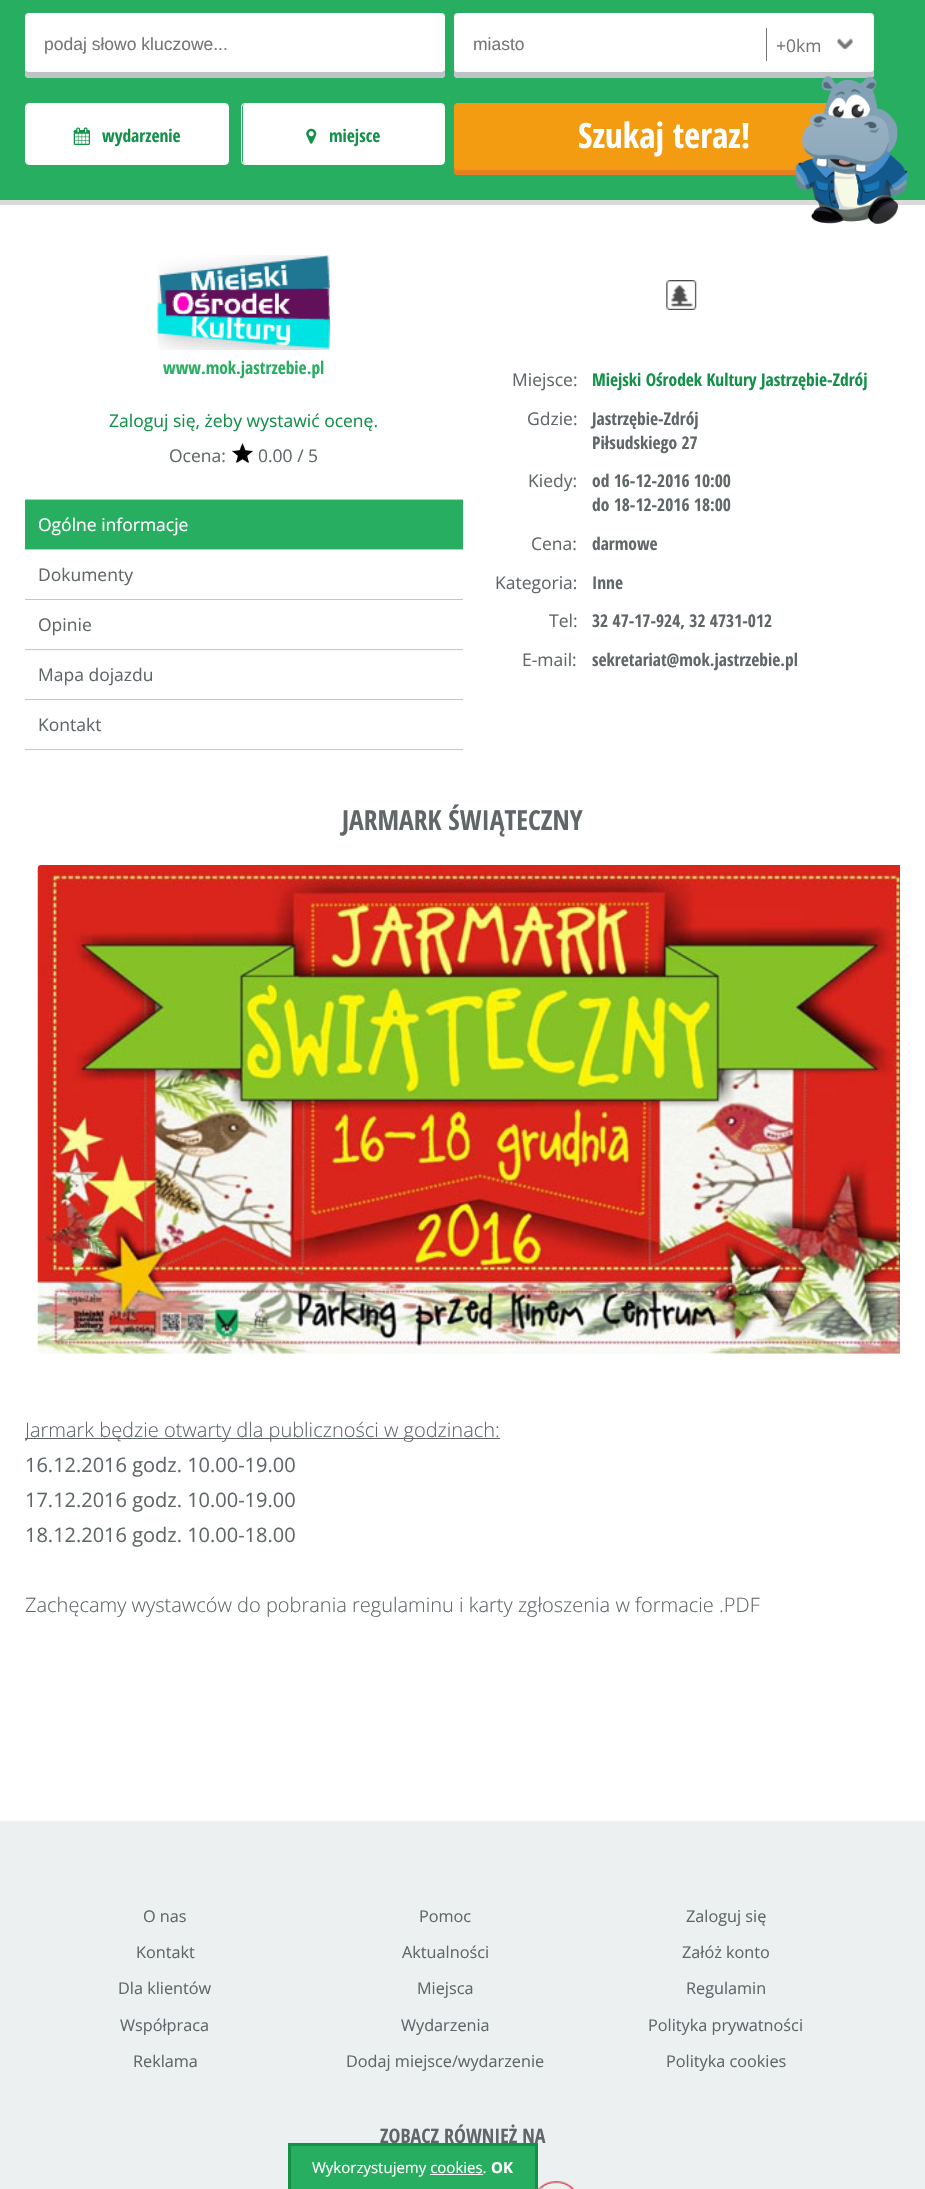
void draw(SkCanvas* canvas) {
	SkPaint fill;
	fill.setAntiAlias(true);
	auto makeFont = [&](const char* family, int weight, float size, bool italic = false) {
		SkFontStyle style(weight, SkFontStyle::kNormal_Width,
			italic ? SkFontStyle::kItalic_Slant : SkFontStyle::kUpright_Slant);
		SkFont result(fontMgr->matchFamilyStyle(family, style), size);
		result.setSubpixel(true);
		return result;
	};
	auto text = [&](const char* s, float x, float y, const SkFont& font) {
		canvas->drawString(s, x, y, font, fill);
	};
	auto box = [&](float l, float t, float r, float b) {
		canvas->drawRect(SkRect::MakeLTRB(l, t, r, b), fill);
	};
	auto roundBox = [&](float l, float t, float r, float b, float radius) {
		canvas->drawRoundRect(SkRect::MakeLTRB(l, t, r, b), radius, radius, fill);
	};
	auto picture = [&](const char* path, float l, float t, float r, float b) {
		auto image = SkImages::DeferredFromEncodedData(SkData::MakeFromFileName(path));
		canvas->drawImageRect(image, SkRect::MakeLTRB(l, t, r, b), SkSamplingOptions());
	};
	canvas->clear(0xFFFFFFFF);
	fill.setColor(0xFF27AE60);
	box(0, 0, 925, 200);
	fill.setColor(0xFFD9D9D9);
	box(0, 200, 925, 205);
	fill.setColor(0xFFFFFFFF);
	roundBox(25, 13, 445, 78, 4);
	canvas->save();
	canvas->clipRect(SkRect::MakeLTRB(25, 0, 445, 78));
	fill.setColor(0xFFBDC3C7);
	canvas->drawPath(SkPathBuilder().moveTo(25, 69).cubicTo(25, 72, 24, 78, 29, 78).lineTo(441, 78).cubicTo(446, 78, 445, 72, 445, 69).cubicTo(445, 71, 443, 72, 441, 72).lineTo(29, 72).cubicTo(27, 72, 25, 71, 25, 69).close().detach(), fill);
	canvas->restore();
	fill.setColor(0xFFFFFFFF);
	roundBox(454, 13, 874, 78, 4);
	canvas->save();
	canvas->clipRect(SkRect::MakeLTRB(454, 0, 874, 78));
	fill.setColor(0xFFBDC3C7);
	canvas->drawPath(SkPathBuilder().moveTo(454, 69).cubicTo(454, 72, 453, 78, 458, 78).lineTo(870, 78).cubicTo(875, 78, 874, 72, 874, 69).cubicTo(874, 71, 872, 72, 870, 72).lineTo(458, 72).cubicTo(455, 72, 454, 71, 454, 69).close().detach(), fill);
	canvas->restore();
	picture("image0.png", 837, 38, 853, 49);
	fill.setColor(0xFF757575);
	box(766, 28, 767, 61);
	fill.setStyle(SkPaint::kStroke_Style);
	fill.setStrokeWidth(1);
	fill.setColor(0xFFFFFFFF);
	canvas->drawRoundRect(SkRect::MakeLTRB(25.5f, 103.5f, 228.5f, 164.5f), 3.5f, 3.5f, fill);
	fill.setStyle(SkPaint::kFill_Style);
	roundBox(26, 104, 228, 164, 2.5f);
	picture("image1.png", 73, 127, 90, 145);
	fill.setStyle(SkPaint::kStroke_Style);
	canvas->drawRoundRect(SkRect::MakeLTRB(241.5f, 103.5f, 444.5f, 164.5f), 3.5f, 3.5f, fill);
	fill.setStyle(SkPaint::kFill_Style);
	roundBox(243, 104, 444, 164, 2.5f);
	picture("image2.png", 306, 128, 317, 144);
	fill.setColor(0xFFF39C12);
	roundBox(454, 103, 874, 175, 4);
	fill.setColor(0xFFE67E22);
	canvas->drawPath(SkPathBuilder().moveTo(454, 166).cubicTo(454, 169, 453, 175, 458, 175).lineTo(870, 175).cubicTo(875, 175, 874, 169, 874, 166).cubicTo(874, 168, 872, 170, 870, 170).lineTo(458, 170).cubicTo(455, 170, 454, 168, 454, 166).close().detach(), fill);
	picture("image3.png", 795, 76, 908, 224);
	picture("image4.png", 157, 255, 330, 350);
	picture("image5.png", 232, 442, 253, 463);
	fill.setColor(0xFFC5C5C5);
	box(25, 749, 463, 750);
	box(25, 499, 463, 500);
	fill.setColor(0xFF27AE60);
	box(25, 500, 463, 549);
	fill.setColor(0xFFC5C5C5);
	box(25, 549, 463, 550);
	box(25, 599, 463, 600);
	box(25, 649, 463, 650);
	box(25, 699, 463, 700);
	picture("image6.png", 666, 280, 697, 310);
	picture("image7.png", 37, 865, 900, 1354);
	fill.setColor(0xFF5F6769);
	box(25, 1438, 500, 1439);
	fill.setColor(0xFFECF0F1);
	box(0, 1821, 925, 2189);
	picture("image8.png", 538, 2181, 575, 2189);
	fill.setColor(0xFF27AE60);
	box(291, 2146, 535, 2189);
	fill.setColor(0xFFFFFFFF);
	box(430, 2174, 483, 2175);
	auto font1 = makeFont("Liberation Sans", 400, 17.5f);
	fill.setColor(0xFF767676);
	text("podaj słowo kluczowe...", 44, 50, font1);
	text("miasto", 473, 50, font1);
	auto font2 = makeFont("Open Sans", 400, 17.5f);
	text("+0km", 776, 52, font2);
	auto font3 = makeFont("Open Sans Condensed", 700, 17.5f);
	fill.setColor(0xFF139149);
	text("wydarzenie", 102, 142, font3);
	text("miejsce", 329, 142, font3);
	auto font4 = makeFont("Open Sans Condensed", 700, 35);
	fill.setColor(0xFFFFFFFF);
	text("Szukaj teraz!", 578, 148, font4);
	fill.setColor(0xFF27AE60);
	text("www.mok.jastrzebie.pl", 163, 374, font3);
	fill.setColor(0xFF139149);
	text("Zaloguj się, żeby wystawić ocenę.", 109, 427, font2);
	fill.setColor(0xFF5F6769);
	text("Ocena:", 169, 462, font2);
	text("0.00 / 5", 258, 462, font2);
	fill.setColor(0xFFFFFFFF);
	text("Ogólne informacje", 38, 531, font2);
	fill.setColor(0xFF5F6769);
	text("Dokumenty", 38, 581, font2);
	text("Opinie", 38, 631, font2);
	text("Mapa dojazdu", 38, 681, font2);
	text("Kontakt", 38, 731, font2);
	text("Miejsce:", 512, 386, font2);
	fill.setColor(0xFF139149);
	text("Miejski Ośrodek Kultury Jastrzębie-Zdrój", 592, 386, font3);
	fill.setColor(0xFF5F6769);
	text("Gdzie:", 527, 425, font2);
	text("Jastrzębie-Zdrój", 592, 425, font3);
	text("Piłsudskiego 27", 592, 449, font3);
	text("Kiedy:", 528, 487, font2);
	text("od 16-12-2016 10:00", 592, 487, font3);
	text("do 18-12-2016 18:00", 592, 511, font3);
	text("Cena:", 531, 550, font2);
	text("darmowe", 592, 550, font3);
	text("Kategoria:", 495, 589, font2);
	text("Inne", 592, 589, font3);
	text("Tel:", 549, 627, font2);
	text("32 47-17-924, 32 4731-012", 592, 627, font3);
	text("E-mail:", 522, 666, font2);
	text("sekretariat@mok.jastrzebie.pl", 592, 666, font3);
	auto font5 = makeFont("Open Sans Condensed", 700, 27.5f);
	text("JARMARK ŚWIĄTECZNY", 342, 830, font5);
	canvas->save();
	canvas->clipRect(SkRect::MakeLTRB(25, 800, 900, 1659));
	auto font6 = makeFont("Open Sans", 300, 20);
	text("Jarmark będzie otwarty dla publiczności w godzinach:", 25, 1437, font6);
	canvas->restore();
	auto font7 = makeFont("Open Sans", 400, 20);
	text("16.12.2016 godz. 10.00-19.00", 25, 1472, font7);
	text("17.12.2016 godz. 10.00-19.00", 25, 1507, font7);
	text("18.12.2016 godz. 10.00-18.00", 25, 1542, font7);
	text("Zachęcamy wystawców do pobrania regulaminu i karty zgłoszenia w formacie .PDF", 25, 1612, font6);
	auto font8 = makeFont("Open Sans", 400, 16.25f);
	text("O nas", 143, 1922, font8);
	text("Kontakt", 136, 1958, font8);
	text("Dla klientów", 118, 1994, font8);
	text("Współpraca", 120, 2031, font8);
	text("Reklama", 133, 2067, font8);
	text("Pomoc", 419, 1922, font8);
	text("Aktualności", 402, 1958, font8);
	text("Miejsca", 417, 1994, font8);
	text("Wydarzenia", 401, 2031, font8);
	text("Dodaj miejsce/wydarzenie", 346, 2067, font8);
	text("Zaloguj się", 686, 1922, font8);
	text("Załóż konto", 682, 1958, font8);
	text("Regulamin", 686, 1994, font8);
	text("Polityka prywatności", 648, 2031, font8);
	text("Polityka cookies", 666, 2067, font8);
	auto font9 = makeFont("Open Sans Condensed", 700, 20);
	text("ZOBACZ RÓWNIEŻ NA", 380, 2143, font9);
	fill.setColor(0xFF139149);
	box(288, 2143, 538, 2146);
	box(535, 2143, 538, 2189);
	box(288, 2143, 291, 2189);
	auto font10 = makeFont("Open Sans", 400, 15);
	fill.setColor(0xFFFFFFFF);
	text("Wykorzystujemy cookies.", 312, 2173, font10);
	auto font11 = makeFont("Open Sans", 700, 15);
	text("OK", 491, 2173, font11);
}
